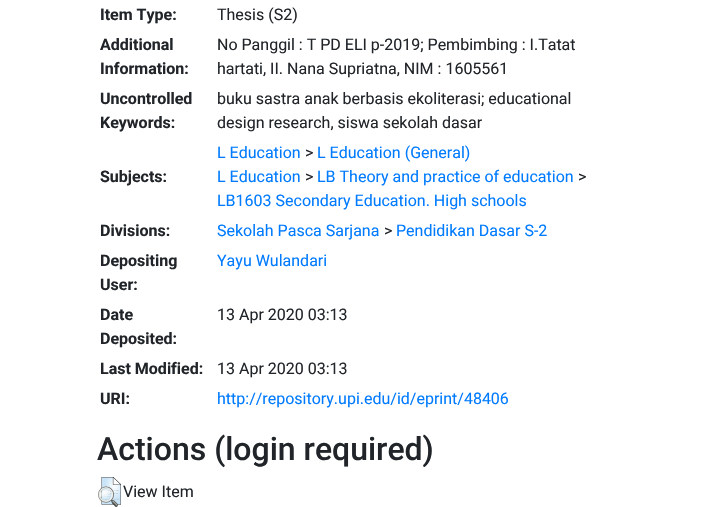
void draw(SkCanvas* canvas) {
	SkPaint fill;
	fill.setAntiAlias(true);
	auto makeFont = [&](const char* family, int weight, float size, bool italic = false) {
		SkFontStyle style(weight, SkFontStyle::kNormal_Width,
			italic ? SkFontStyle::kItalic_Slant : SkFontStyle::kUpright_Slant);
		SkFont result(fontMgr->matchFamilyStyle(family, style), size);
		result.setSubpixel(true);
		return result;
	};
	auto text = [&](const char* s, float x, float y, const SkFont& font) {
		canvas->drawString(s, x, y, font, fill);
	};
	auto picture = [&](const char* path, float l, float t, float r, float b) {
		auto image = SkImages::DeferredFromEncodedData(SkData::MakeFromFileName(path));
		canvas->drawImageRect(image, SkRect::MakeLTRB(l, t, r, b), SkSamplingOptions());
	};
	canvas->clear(0xFFFFFFFF);
	picture("image0.png", 98, 477, 121, 507);
	auto font1 = makeFont("Roboto", 700, 16);
	fill.setColor(0xFF212529);
	text("Item Type:", 100, 20, font1);
	auto font2 = makeFont("Roboto", 400, 16);
	text("Thesis (S2)", 217, 20, font2);
	text("Additional", 100, 50, font1);
	text("Information:", 100, 74, font1);
	text("No Panggil : T PD ELI p-2019; Pembimbing : I.Tatat", 217, 50, font2);
	text("hartati, II. Nana Supriatna, NIM : 1605561", 217, 74, font2);
	text("Uncontrolled", 100, 104, font1);
	text("Keywords:", 100, 128, font1);
	text("buku sastra anak berbasis ekoliterasi; educational", 217, 104, font2);
	text("design research, siswa sekolah dasar", 217, 128, font2);
	text("Subjects:", 100, 182, font1);
	fill.setColor(0xFF007BFF);
	text("L Education", 217, 158, font2);
	fill.setColor(0xFF212529);
	text(">", 305, 158, font2);
	fill.setColor(0xFF007BFF);
	text("L Education (General)", 317, 158, font2);
	text("L Education", 217, 182, font2);
	fill.setColor(0xFF212529);
	text(">", 305, 182, font2);
	fill.setColor(0xFF007BFF);
	text("LB Theory and practice of education", 317, 182, font2);
	fill.setColor(0xFF212529);
	text(">", 578, 182, font2);
	fill.setColor(0xFF007BFF);
	text("LB1603 Secondary Education. High schools", 217, 206, font2);
	fill.setColor(0xFF212529);
	text("Divisions:", 100, 236, font1);
	fill.setColor(0xFF007BFF);
	text("Sekolah Pasca Sarjana", 217, 236, font2);
	fill.setColor(0xFF212529);
	text(">", 384, 236, font2);
	fill.setColor(0xFF007BFF);
	text("Pendidikan Dasar S-2", 396, 236, font2);
	fill.setColor(0xFF212529);
	text("Depositing", 100, 266, font1);
	text("User:", 100, 290, font1);
	fill.setColor(0xFF007BFF);
	text("Yayu Wulandari", 217, 266, font2);
	fill.setColor(0xFF212529);
	text("Date", 100, 320, font1);
	text("Deposited:", 100, 344, font1);
	text("13 Apr 2020 03:13", 217, 320, font2);
	text("Last Modified:", 100, 374, font1);
	text("13 Apr 2020 03:13", 217, 374, font2);
	text("URI:", 100, 404, font1);
	fill.setColor(0xFF007BFF);
	text("http://repository.upi.edu/id/eprint/48406", 217, 404, font2);
	auto font3 = makeFont("Roboto", 500, 32);
	fill.setColor(0xFF212529);
	text("Actions (login required)", 97, 460, font3);
	text("View Item", 123, 497, font2);
}
